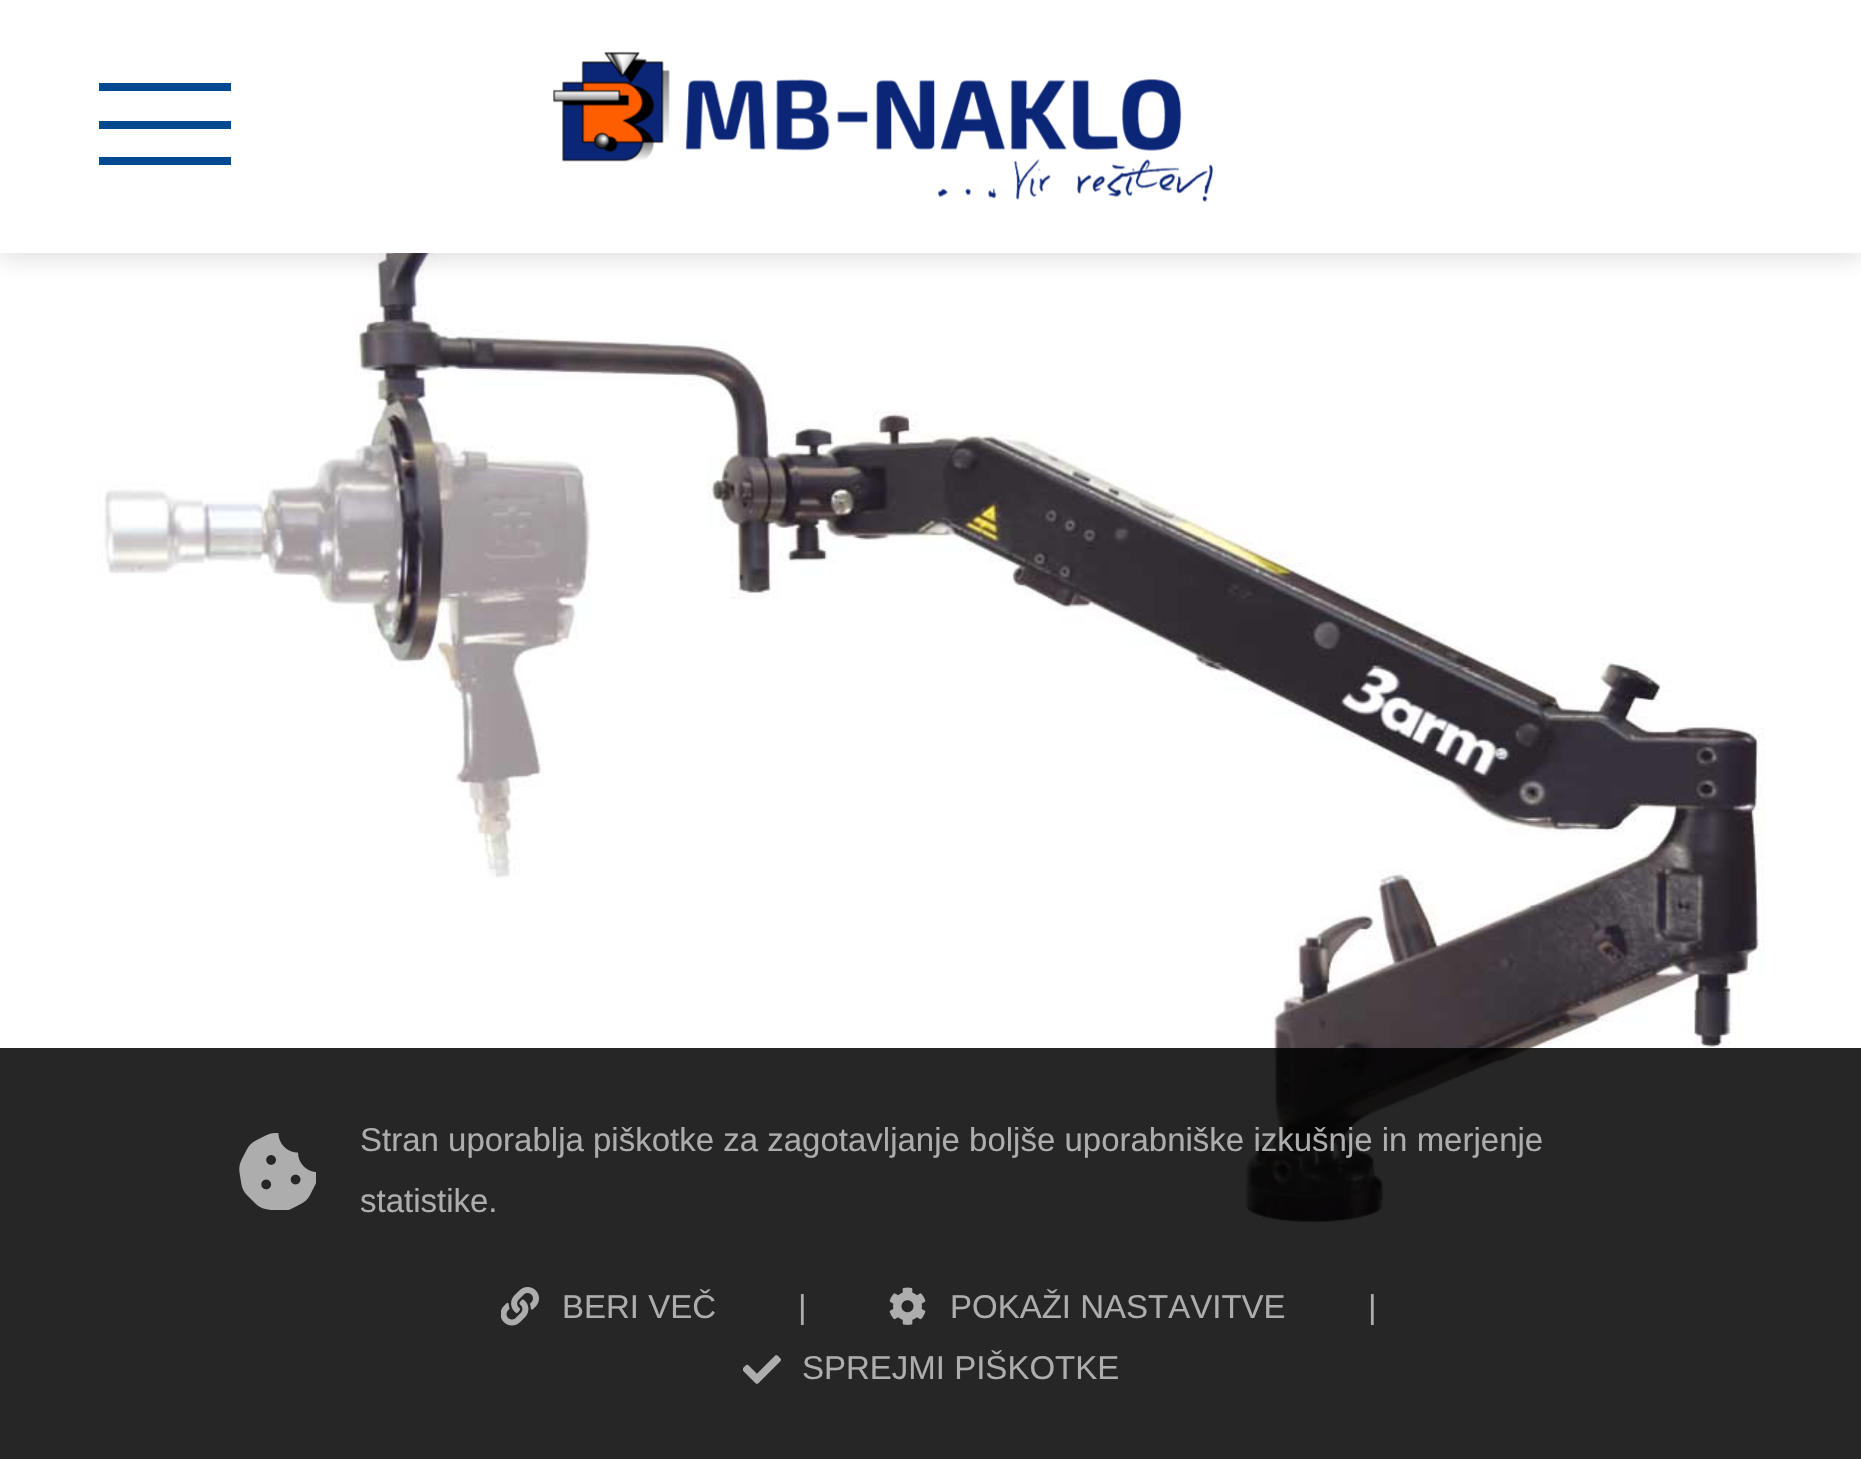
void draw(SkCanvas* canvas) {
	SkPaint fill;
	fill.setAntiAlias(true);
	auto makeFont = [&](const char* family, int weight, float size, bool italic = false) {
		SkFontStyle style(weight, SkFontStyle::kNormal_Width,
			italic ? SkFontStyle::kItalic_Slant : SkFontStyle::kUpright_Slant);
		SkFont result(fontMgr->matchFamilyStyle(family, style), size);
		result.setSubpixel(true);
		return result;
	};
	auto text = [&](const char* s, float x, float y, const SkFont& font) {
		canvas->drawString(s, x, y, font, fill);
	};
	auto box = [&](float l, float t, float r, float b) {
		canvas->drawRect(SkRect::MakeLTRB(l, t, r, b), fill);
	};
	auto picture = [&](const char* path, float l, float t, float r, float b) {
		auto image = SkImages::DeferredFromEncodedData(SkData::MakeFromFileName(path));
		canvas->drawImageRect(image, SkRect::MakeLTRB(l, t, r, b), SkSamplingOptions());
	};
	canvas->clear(0xFFFFFFFF);
	picture("image1.png", 97, 253, 1765, 1234);
	fill.setColor(0x33636363);
	fill.setMaskFilter(SkMaskFilter::MakeBlur(kNormal_SkBlurStyle, 11));
	canvas->drawRect(SkRect::MakeLTRB(0, 6, 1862, 259), fill);
	fill.setMaskFilter(nullptr);
	fill.setColor(0xFFFFFFFF);
	box(0, 0, 1861, 253);
	fill.setColor(0xFF004990);
	box(99, 83, 231, 91);
	box(99, 121, 231, 129);
	box(99, 157, 231, 165);
	picture("image0.png", 553, 51, 1214, 202);
	fill.setColor(0xD9000000);
	box(0, 1048, 1861, 1459);
	picture("image2.png", 239, 1133, 316, 1210);
	picture("image3.png", 501, 1287, 539, 1326);
	picture("image4.png", 889, 1287, 926, 1325);
	picture("image5.png", 743, 1355, 781, 1384);
	auto font1 = makeFont("Liberation Sans", 400, 33);
	fill.setColor(0xFFADADAD);
	text("Stran uporablja piškotke za zagotavljanje boljše uporabniške izkušnje in merjenje", 360, 1151, font1);
	text("statistike.", 360, 1212, font1);
	text("BERI VEČ", 562, 1318, font1);
	text("|", 798, 1318, font1);
	text("POKAŽI NASTAVITVE", 950, 1318, font1);
	text("|", 1368, 1318, font1);
	text("SPREJMI PIŠKOTKE", 802, 1379, font1);
}
